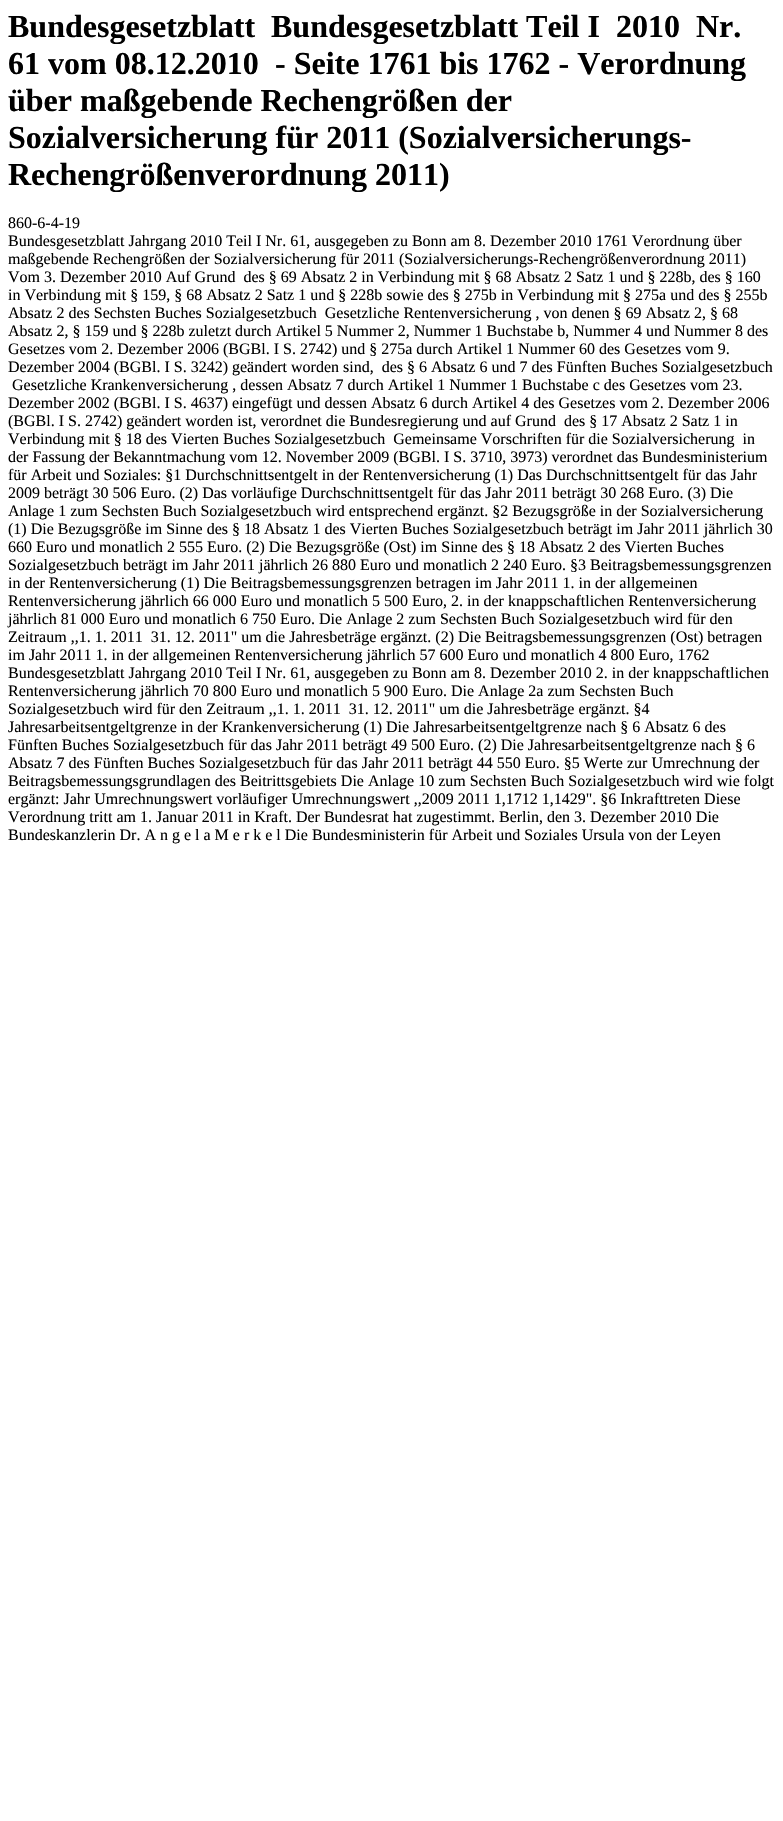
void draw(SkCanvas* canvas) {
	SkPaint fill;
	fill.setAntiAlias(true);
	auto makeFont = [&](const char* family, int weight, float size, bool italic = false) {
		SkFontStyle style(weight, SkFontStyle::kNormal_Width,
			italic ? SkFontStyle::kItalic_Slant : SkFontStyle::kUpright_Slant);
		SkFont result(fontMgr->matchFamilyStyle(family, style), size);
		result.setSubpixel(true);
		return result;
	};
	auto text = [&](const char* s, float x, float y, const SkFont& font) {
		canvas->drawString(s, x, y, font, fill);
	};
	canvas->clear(0xFFFFFFFF);
	auto font1 = makeFont("Liberation Serif", 700, 32);
	fill.setColor(0xFF000000);
	text("Bundesgesetzblatt", 8, 37, font1);
	text("Bundesgesetzblatt Teil I", 271, 37, font1);
	text("2010", 616, 37, font1);
	text("Nr.", 696, 37, font1);
	text("61 vom 08.12.2010", 8, 74, font1);
	text("- Seite 1761 bis 1762 - Verordnung", 275, 74, font1);
	text("über maßgebende Rechengrößen der", 8, 111, font1);
	text("Sozialversicherung für 2011 (Sozialversicherungs-", 8, 148, font1);
	text("Rechengrößenverordnung 2011)", 8, 185, font1);
	auto font2 = makeFont("Liberation Serif", 400, 16);
	text("860-6-4-19", 8, 228, font2);
	text("Bundesgesetzblatt Jahrgang 2010 Teil I Nr. 61, ausgegeben zu Bonn am 8. Dezember 2010 1761 Verordnung über", 8, 246, font2);
	text("maßgebende Rechengrößen der Sozialversicherung für 2011 (Sozialversicherungs-Rechengrößenverordnung 2011)", 8, 264, font2);
	text("Vom 3. Dezember 2010 Auf Grund  des § 69 Absatz 2 in Verbindung mit § 68 Absatz 2 Satz 1 und § 228b, des § 160", 8, 282, font2);
	text("in Verbindung mit § 159, § 68 Absatz 2 Satz 1 und § 228b sowie des § 275b in Verbindung mit § 275a und des § 255b", 8, 300, font2);
	text("Absatz 2 des Sechsten Buches Sozialgesetzbuch  Gesetzliche Rentenversicherung , von denen § 69 Absatz 2, § 68", 8, 318, font2);
	text("Absatz 2, § 159 und § 228b zuletzt durch Artikel 5 Nummer 2, Nummer 1 Buchstabe b, Nummer 4 und Nummer 8 des", 8, 336, font2);
	text("Gesetzes vom 2. Dezember 2006 (BGBl. I S. 2742) und § 275a durch Artikel 1 Nummer 60 des Gesetzes vom 9.", 8, 354, font2);
	text("Dezember 2004 (BGBl. I S. 3242) geändert worden sind,  des § 6 Absatz 6 und 7 des Fünften Buches Sozialgesetzbuch", 8, 372, font2);
	text("Gesetzliche Krankenversicherung , dessen Absatz 7 durch Artikel 1 Nummer 1 Buchstabe c des Gesetzes vom 23.", 12, 390, font2);
	text("Dezember 2002 (BGBl. I S. 4637) eingefügt und dessen Absatz 6 durch Artikel 4 des Gesetzes vom 2. Dezember 2006", 8, 408, font2);
	text("(BGBl. I S. 2742) geändert worden ist, verordnet die Bundesregierung und auf Grund  des § 17 Absatz 2 Satz 1 in", 8, 426, font2);
	text("Verbindung mit § 18 des Vierten Buches Sozialgesetzbuch  Gemeinsame Vorschriften für die Sozialversicherung  in", 8, 444, font2);
	text("der Fassung der Bekanntmachung vom 12. November 2009 (BGBl. I S. 3710, 3973) verordnet das Bundesministerium", 8, 462, font2);
	text("für Arbeit und Soziales: §1 Durchschnittsentgelt in der Rentenversicherung (1) Das Durchschnittsentgelt für das Jahr", 8, 480, font2);
	text("2009 beträgt 30 506 Euro. (2) Das vorläufige Durchschnittsentgelt für das Jahr 2011 beträgt 30 268 Euro. (3) Die", 8, 498, font2);
	text("Anlage 1 zum Sechsten Buch Sozialgesetzbuch wird entsprechend ergänzt. §2 Bezugsgröße in der Sozialversicherung", 8, 516, font2);
	text("(1) Die Bezugsgröße im Sinne des § 18 Absatz 1 des Vierten Buches Sozialgesetzbuch beträgt im Jahr 2011 jährlich 30", 8, 534, font2);
	text("660 Euro und monatlich 2 555 Euro. (2) Die Bezugsgröße (Ost) im Sinne des § 18 Absatz 2 des Vierten Buches", 8, 552, font2);
	text("Sozialgesetzbuch beträgt im Jahr 2011 jährlich 26 880 Euro und monatlich 2 240 Euro. §3 Beitragsbemessungsgrenzen", 8, 570, font2);
	text("in der Rentenversicherung (1) Die Beitragsbemessungsgrenzen betragen im Jahr 2011 1. in der allgemeinen", 8, 588, font2);
	text("Rentenversicherung jährlich 66 000 Euro und monatlich 5 500 Euro, 2. in der knappschaftlichen Rentenversicherung", 8, 606, font2);
	text("jährlich 81 000 Euro und monatlich 6 750 Euro. Die Anlage 2 zum Sechsten Buch Sozialgesetzbuch wird für den", 8, 624, font2);
	text("Zeitraum ,,1. 1. 2011  31. 12. 2011\" um die Jahresbeträge ergänzt. (2) Die Beitragsbemessungsgrenzen (Ost) betragen", 8, 642, font2);
	text("im Jahr 2011 1. in der allgemeinen Rentenversicherung jährlich 57 600 Euro und monatlich 4 800 Euro, 1762", 8, 660, font2);
	text("Bundesgesetzblatt Jahrgang 2010 Teil I Nr. 61, ausgegeben zu Bonn am 8. Dezember 2010 2. in der knappschaftlichen", 8, 678, font2);
	text("Rentenversicherung jährlich 70 800 Euro und monatlich 5 900 Euro. Die Anlage 2a zum Sechsten Buch", 8, 696, font2);
	text("Sozialgesetzbuch wird für den Zeitraum ,,1. 1. 2011  31. 12. 2011\" um die Jahresbeträge ergänzt. §4", 8, 714, font2);
	text("Jahresarbeitsentgeltgrenze in der Krankenversicherung (1) Die Jahresarbeitsentgeltgrenze nach § 6 Absatz 6 des", 8, 732, font2);
	text("Fünften Buches Sozialgesetzbuch für das Jahr 2011 beträgt 49 500 Euro. (2) Die Jahresarbeitsentgeltgrenze nach § 6", 8, 750, font2);
	text("Absatz 7 des Fünften Buches Sozialgesetzbuch für das Jahr 2011 beträgt 44 550 Euro. §5 Werte zur Umrechnung der", 8, 768, font2);
	text("Beitragsbemessungsgrundlagen des Beitrittsgebiets Die Anlage 10 zum Sechsten Buch Sozialgesetzbuch wird wie folgt", 8, 786, font2);
	text("ergänzt: Jahr Umrechnungswert vorläufiger Umrechnungswert ,,2009 2011 1,1712 1,1429\". §6 Inkrafttreten Diese", 8, 804, font2);
	text("Verordnung tritt am 1. Januar 2011 in Kraft. Der Bundesrat hat zugestimmt. Berlin, den 3. Dezember 2010 Die", 8, 822, font2);
	text("Bundeskanzlerin Dr. A n g e l a M e r k e l Die Bundesministerin für Arbeit und Soziales Ursula von der Leyen", 8, 840, font2);
}
